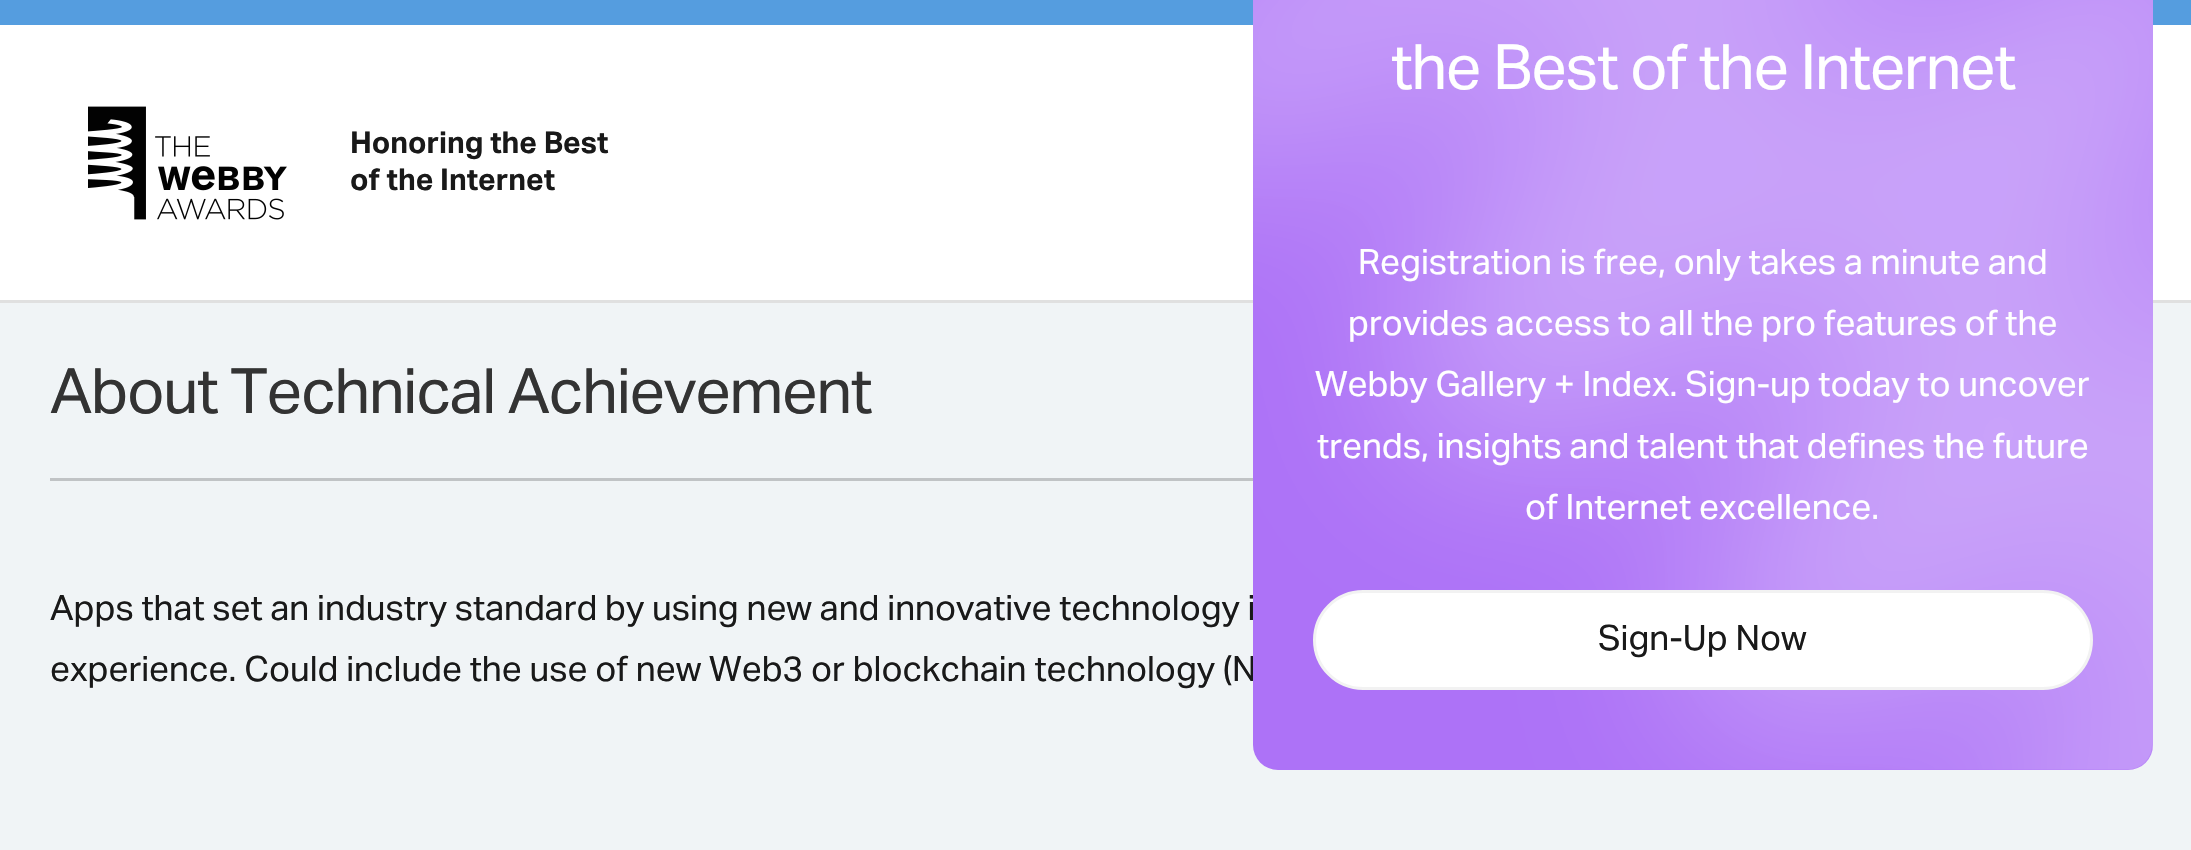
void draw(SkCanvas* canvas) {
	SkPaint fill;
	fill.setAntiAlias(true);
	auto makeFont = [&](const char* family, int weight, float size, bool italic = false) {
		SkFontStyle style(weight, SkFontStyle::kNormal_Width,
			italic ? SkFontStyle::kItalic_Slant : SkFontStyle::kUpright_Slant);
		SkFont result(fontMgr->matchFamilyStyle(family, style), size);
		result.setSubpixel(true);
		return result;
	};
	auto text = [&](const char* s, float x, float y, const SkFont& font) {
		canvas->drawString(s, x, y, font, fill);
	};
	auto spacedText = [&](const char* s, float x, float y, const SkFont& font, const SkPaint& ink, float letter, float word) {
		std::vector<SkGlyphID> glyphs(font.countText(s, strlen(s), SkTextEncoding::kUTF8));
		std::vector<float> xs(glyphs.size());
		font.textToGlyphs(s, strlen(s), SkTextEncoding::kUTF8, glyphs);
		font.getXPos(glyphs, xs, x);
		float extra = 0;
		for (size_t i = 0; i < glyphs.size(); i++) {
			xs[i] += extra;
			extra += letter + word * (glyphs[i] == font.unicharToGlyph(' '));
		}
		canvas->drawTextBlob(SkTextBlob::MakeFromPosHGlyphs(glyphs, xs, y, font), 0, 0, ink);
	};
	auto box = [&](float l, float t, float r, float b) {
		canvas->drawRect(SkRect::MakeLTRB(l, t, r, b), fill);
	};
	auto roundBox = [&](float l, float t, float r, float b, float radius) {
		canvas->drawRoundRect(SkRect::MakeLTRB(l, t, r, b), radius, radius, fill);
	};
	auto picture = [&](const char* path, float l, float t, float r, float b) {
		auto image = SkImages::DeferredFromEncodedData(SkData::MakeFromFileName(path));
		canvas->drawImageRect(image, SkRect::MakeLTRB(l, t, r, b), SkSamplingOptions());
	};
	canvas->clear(0xFFF0F4F6);
	fill.setColor(0xFFFFFFFF);
	box(0, 25, 2191, 300);
	fill.setColor(0xFF559DDF);
	box(0, 0, 2191, 25);
	fill.setColor(0xFFE0E0E0);
	box(0, 300, 2191, 303);
	picture("image0.png", 88, 106, 287, 220);
	fill.setColor(0xFFC0C3C5);
	box(50, 478, 1253, 481);
	auto font1 = makeFont("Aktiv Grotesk", 700, 30);
	fill.setColor(0xFF191919);
	text("Honoring the Best", 350, 153, font1);
	text("of the Internet", 350, 190, font1);
	auto font2 = makeFont("Aktiv Grotesk", 400, 62.5f);
	fill.setColor(0xFF333333);
	spacedText("About Technical Achievement", 50, 413, font2, fill, -1.25f, 0);
	auto font3 = makeFont("Aktiv Grotesk", 400, 35);
	fill.setColor(0xFF191919);
	text("Apps that set an industry standard by using new and innovative technology i", 50, 620, font3);
	text("experience. Could include the use of new Web3 or blockchain technology (N", 50, 681, font3);
	fill.setColor(0xFFAD72F7);
	roundBox(1253, -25, 2153, 770, 25);
	picture("image1.png", 1253, 0, 2153, 770);
	fill.setColor(0xFFFFFFFF);
	spacedText("the Best of the Internet", 1391, 89, font2, fill, -1.25f, 0);
	text("Registration is free, only takes a minute and", 1358, 274, font3);
	text("provides access to all the pro features of the", 1348, 335, font3);
	text("Webby Gallery + Index. Sign-up today to uncover", 1315, 396, font3);
	text("trends, insights and talent that defines the future", 1317, 458, font3);
	text("of Internet excellence.", 1525, 519, font3);
	canvas->drawRoundRect(SkRect::MakeLTRB(1314.5f, 591.5f, 2091.5f, 688.5f), 48.5f, 48.5f, fill);
	fill.setStyle(SkPaint::kStroke_Style);
	fill.setStrokeWidth(3);
	fill.setColor(0xFFF2F2F2);
	canvas->drawRoundRect(SkRect::MakeLTRB(1314.5f, 591.5f, 2091.5f, 688.5f), 48.5f, 48.5f, fill);
	fill.setStyle(SkPaint::kFill_Style);
	fill.setColor(0xFF191919);
	text("Sign-Up Now", 1598, 650, font3);
}
